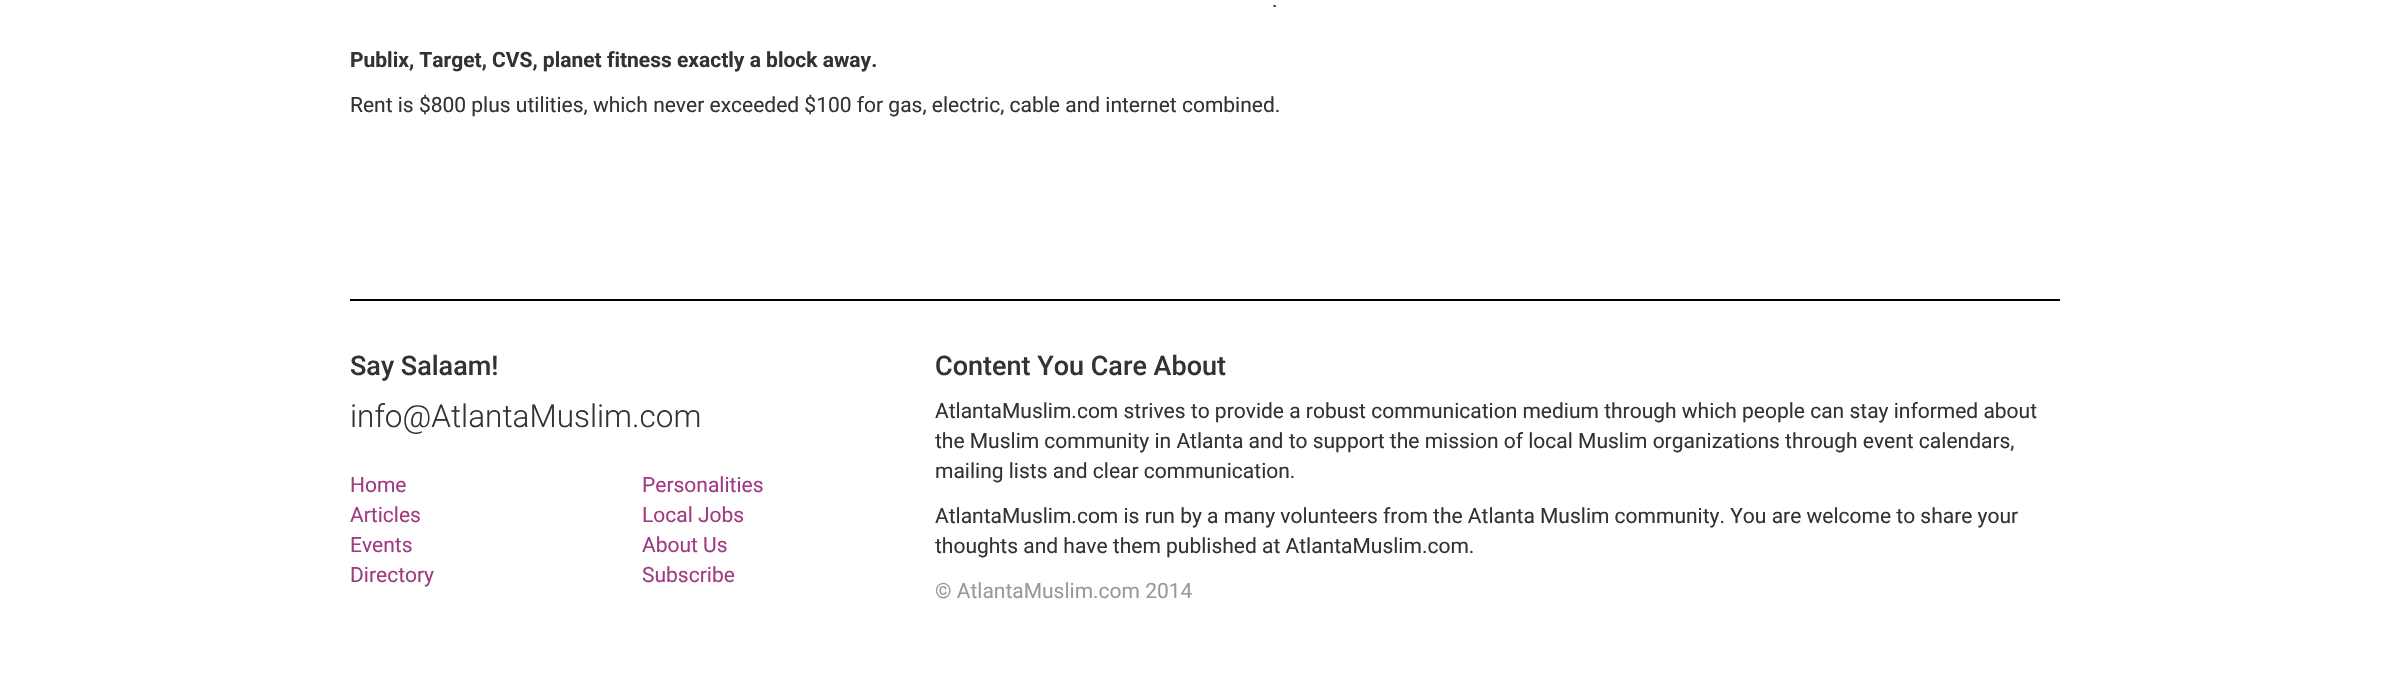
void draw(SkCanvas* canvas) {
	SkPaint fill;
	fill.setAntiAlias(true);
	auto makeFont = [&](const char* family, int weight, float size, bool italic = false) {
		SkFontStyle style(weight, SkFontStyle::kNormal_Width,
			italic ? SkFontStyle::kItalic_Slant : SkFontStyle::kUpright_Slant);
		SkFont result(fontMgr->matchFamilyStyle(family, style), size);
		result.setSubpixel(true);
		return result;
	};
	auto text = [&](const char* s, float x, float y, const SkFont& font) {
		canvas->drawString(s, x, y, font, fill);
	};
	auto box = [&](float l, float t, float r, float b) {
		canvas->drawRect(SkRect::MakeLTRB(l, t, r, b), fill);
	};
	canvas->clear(0xFFFFFFFF);
	fill.setColor(0xFF000000);
	box(350, 299, 2060, 301);
	auto font1 = makeFont("Roboto", 400, 21);
	fill.setColor(0xFF333333);
	text(".", 1272, 7, font1);
	auto font2 = makeFont("Roboto", 700, 21);
	text("Publix, Target, CVS, planet fitness exactly a block away.", 350, 67, font2);
	text("Rent is $800 plus utilities, which never exceeded $100 for gas, electric, cable and internet combined.", 350, 112, font1);
	auto font3 = makeFont("Roboto", 500, 27);
	text("Say Salaam!", 350, 375, font3);
	auto font4 = makeFont("Roboto", 300, 31.5f);
	text("info@AtlantaMuslim.com", 350, 427, font4);
	fill.setColor(0xFFA13A82);
	text("Home", 350, 492, font1);
	text("Articles", 350, 522, font1);
	text("Events", 350, 552, font1);
	text("Directory", 350, 582, font1);
	text("Personalities", 642, 492, font1);
	text("Local Jobs", 642, 522, font1);
	text("About Us", 642, 552, font1);
	text("Subscribe", 642, 582, font1);
	fill.setColor(0xFF333333);
	text("Content You Care About", 935, 375, font3);
	text("AtlantaMuslim.com strives to provide a robust communication medium through which people can stay informed about", 935, 418, font1);
	text("the Muslim community in Atlanta and to support the mission of local Muslim organizations through event calendars,", 935, 448, font1);
	text("mailing lists and clear communication.", 935, 478, font1);
	text("AtlantaMuslim.com is run by a many volunteers from the Atlanta Muslim community. You are welcome to share your", 935, 523, font1);
	text("thoughts and have them published at AtlantaMuslim.com.", 935, 553, font1);
	fill.setColor(0xFF999999);
	text("© AtlantaMuslim.com 2014", 935, 598, font1);
}
